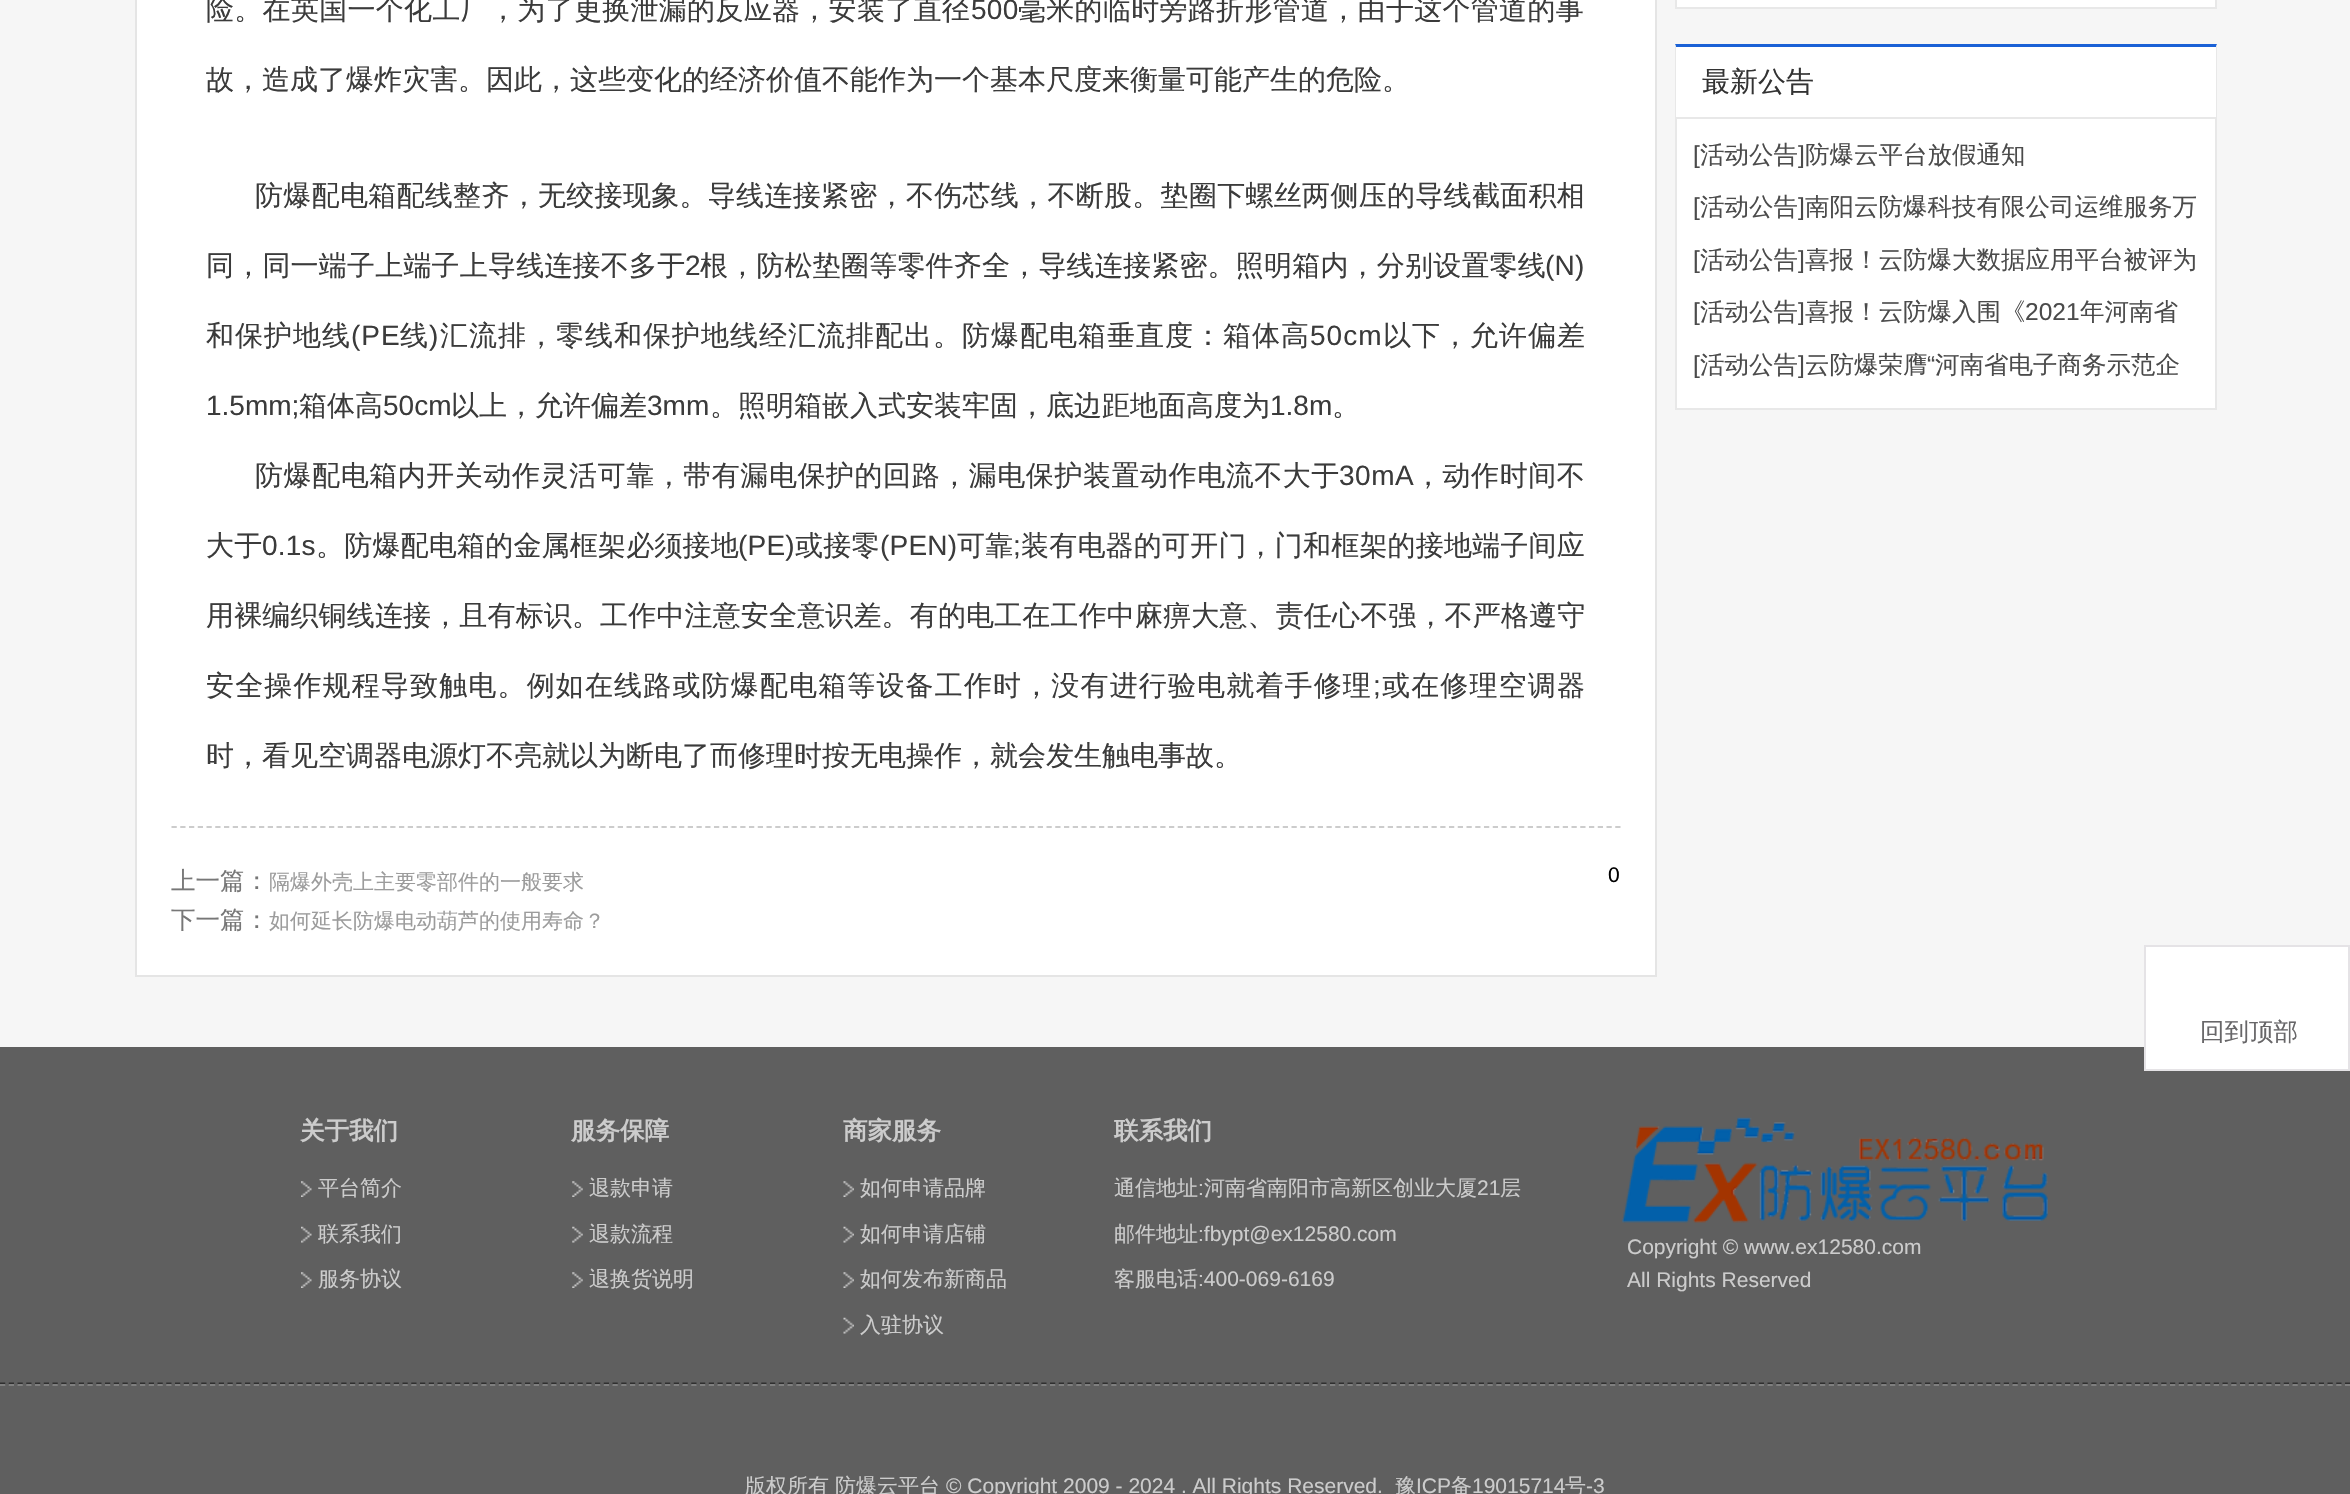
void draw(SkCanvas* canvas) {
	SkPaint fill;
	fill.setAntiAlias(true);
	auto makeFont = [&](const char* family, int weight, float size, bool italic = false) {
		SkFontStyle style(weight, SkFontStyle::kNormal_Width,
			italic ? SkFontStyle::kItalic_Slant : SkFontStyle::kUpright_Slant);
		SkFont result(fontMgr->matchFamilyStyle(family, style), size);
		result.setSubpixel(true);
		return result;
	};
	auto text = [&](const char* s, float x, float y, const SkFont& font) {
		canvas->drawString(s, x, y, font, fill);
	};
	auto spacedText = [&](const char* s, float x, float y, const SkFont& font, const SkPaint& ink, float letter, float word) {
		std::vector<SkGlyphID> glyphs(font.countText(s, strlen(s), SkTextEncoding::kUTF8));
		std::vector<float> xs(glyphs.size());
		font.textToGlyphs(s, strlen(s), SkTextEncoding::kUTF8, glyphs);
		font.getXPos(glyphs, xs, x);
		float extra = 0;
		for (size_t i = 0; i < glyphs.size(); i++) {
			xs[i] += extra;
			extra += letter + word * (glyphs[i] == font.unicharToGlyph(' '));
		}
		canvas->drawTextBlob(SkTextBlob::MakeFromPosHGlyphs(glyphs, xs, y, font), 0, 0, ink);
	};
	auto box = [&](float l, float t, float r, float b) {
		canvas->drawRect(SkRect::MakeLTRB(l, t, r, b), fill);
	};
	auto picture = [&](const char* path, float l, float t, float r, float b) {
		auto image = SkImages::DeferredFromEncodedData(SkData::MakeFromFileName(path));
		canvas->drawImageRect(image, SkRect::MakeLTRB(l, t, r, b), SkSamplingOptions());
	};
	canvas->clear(0xFFF6F6F6);
	fill.setColor(0xFFFFFFFF);
	canvas->drawRect(SkRect::MakeLTRB(136, -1, 1656, 976), fill);
	fill.setStyle(SkPaint::kStroke_Style);
	fill.setStrokeWidth(2);
	fill.setColor(0xFFE5E5E5);
	canvas->drawRect(SkRect::MakeLTRB(136, -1, 1656, 976), fill);
	fill.setStrokeWidth(1.8f);
	fill.setColor(0xFFCCCCCC);
	fill.setPathEffect(SkDashPathEffect::Make({{5.25f, 3.5f}}, 0));
	canvas->drawPath(SkPathBuilder().moveTo(171.5f, 827).lineTo(1620.5f, 827).detach(), fill);
	fill.setPathEffect(nullptr);
	fill.setStyle(SkPaint::kFill_Style);
	fill.setColor(0xFFFFFFFF);
	canvas->drawRect(SkRect::MakeLTRB(1676, -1, 2216, 8), fill);
	fill.setStyle(SkPaint::kStroke_Style);
	fill.setStrokeWidth(2);
	fill.setColor(0xFFE8E8E8);
	canvas->drawRect(SkRect::MakeLTRB(1676, -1, 2216, 8), fill);
	fill.setStyle(SkPaint::kFill_Style);
	fill.setColor(0xFFFFFFFF);
	box(1675, 44, 2217, 408);
	fill.setColor(0xFF1A61D6);
	canvas->drawPath(SkPathBuilder().moveTo(1675, 44).lineTo(2217, 44).lineTo(2216, 47).lineTo(1676, 47).close().detach(), fill);
	fill.setColor(0xFFE8E8E8);
	canvas->drawPath(SkPathBuilder().moveTo(2217, 44).lineTo(2217, 117).lineTo(2216, 117).lineTo(2216, 47).close().detach(), fill);
	canvas->drawPath(SkPathBuilder().moveTo(1675, 117).lineTo(1675, 44).lineTo(1676, 47).lineTo(1676, 117).close().detach(), fill);
	fill.setStyle(SkPaint::kStroke_Style);
	canvas->drawRect(SkRect::MakeLTRB(1676, 118, 2216, 409), fill);
	fill.setStyle(SkPaint::kFill_Style);
	fill.setColor(0xFF5F5F5F);
	box(0, 1047, 2350, 1494);
	fill.setColor(0xFFFFFFFF);
	canvas->drawRect(SkRect::MakeLTRB(2145, 946, 2349, 1070), fill);
	fill.setStyle(SkPaint::kStroke_Style);
	fill.setColor(0xFFE5E3E6);
	canvas->drawRect(SkRect::MakeLTRB(2145, 946, 2349, 1070), fill);
	fill.setStrokeWidth(1.8f);
	fill.setColor(0xFF2F2F2F);
	fill.setPathEffect(SkDashPathEffect::Make({{5.25f, 3.5f}}, 0));
	canvas->drawPath(SkPathBuilder().moveTo(0, 1383.5f).lineTo(2350, 1383.5f).detach(), fill);
	fill.setPathEffect(nullptr);
	picture("image0.png", 301, 1181, 312, 1197);
	picture("image1.png", 301, 1226, 312, 1243);
	picture("image0.png", 301, 1272, 312, 1288);
	picture("image2.png", 572, 1181, 583, 1197);
	picture("image3.png", 572, 1226, 583, 1243);
	picture("image2.png", 572, 1272, 583, 1288);
	picture("image4.png", 843, 1181, 854, 1197);
	picture("image5.png", 843, 1226, 854, 1243);
	picture("image4.png", 843, 1272, 854, 1288);
	picture("image5.png", 843, 1317, 854, 1334);
	picture("image6.png", 1622, 1117, 2048, 1223);
	fill.setColor(0xFF7F7F7F);
	fill.setPathEffect(SkDashPathEffect::Make({{5.25f, 3.5f}}, 0));
	canvas->drawPath(SkPathBuilder().moveTo(0, 1385).lineTo(2350, 1385).detach(), fill);
	fill.setPathEffect(nullptr);
	auto font1 = makeFont("WenQuanYi Zen Hei", 500, 28);
	fill.setStyle(SkPaint::kFill_Style);
	fill.setColor(0xFF3B3B3B);
	spacedText("险。在英国一个化工厂，为了更换泄漏的反应器，安装了直径", 206, 19, font1, fill, 0.3f, 0);
	auto font2 = makeFont("Liberation Sans", 400, 28);
	spacedText("500", 971, 19, font2, fill, 0.3f, 0);
	spacedText("毫米的临时旁路折形管道，由于这个管道的事", 1018, 19, font1, fill, 0.3f, 0);
	text("故，造成了爆炸灾害。因此，这些变化的经济价值不能作为一个基本尺度来衡量可能产生的危险。", 206, 89, font1);
	spacedText("防爆配电箱配线整齐，无绞接现象。导线连接紧密，不伤芯线，不断股。垫圈下螺丝两侧压的导线截面积相", 255, 205, font1, fill, 0.3f, 0);
	spacedText("同，同一端子上端子上导线连接不多于", 206, 275, font1, fill, 0.2f, 0);
	spacedText("2", 685, 275, font2, fill, 0.2f, 0);
	spacedText("根，防松垫圈等零件齐全，导线连接紧密。照明箱内，分别设置零线", 700, 275, font1, fill, 0.2f, 0);
	spacedText("(N)", 1545, 275, font2, fill, 0.2f, 0);
	spacedText("和保护地线", 206, 345, font1, fill, 1, 0);
	spacedText("(PE", 351, 345, font2, fill, 1, 0);
	spacedText("线", 400, 345, font1, fill, 1, 0);
	spacedText(")", 429, 345, font2, fill, 1, 0);
	spacedText("汇流排，零线和保护地线经汇流排配出。防爆配电箱垂直度：箱体高", 440, 345, font1, fill, 1, 0);
	spacedText("50cm", 1310, 345, font2, fill, 1, 0);
	spacedText("以下，允许偏差", 1383, 345, font1, fill, 1, 0);
	text("1.5mm;", 206, 415, font2);
	text("箱体高", 299, 415, font1);
	text("50cm", 383, 415, font2);
	text("以上，允许偏差", 451, 415, font1);
	text("3mm", 647, 415, font2);
	text("。照明箱嵌入式安装牢固，底边距地面高度为", 710, 415, font1);
	text("1.8m", 1270, 415, font2);
	text("。", 1332, 415, font1);
	spacedText("防爆配电箱内开关动作灵活可靠，带有漏电保护的回路，漏电保护装置动作电流不大于", 255, 485, font1, fill, 0.55f, 0);
	spacedText("30mA", 1339, 485, font2, fill, 0.55f, 0);
	spacedText("，动作时间不", 1414, 485, font1, fill, 0.55f, 0);
	spacedText("大于", 206, 555, font1, fill, 0.2f, 0);
	spacedText("0.1s", 262, 555, font2, fill, 0.2f, 0);
	spacedText("。防爆配电箱的金属框架必须接地", 316, 555, font1, fill, 0.2f, 0);
	spacedText("(PE)", 738, 555, font2, fill, 0.2f, 0);
	spacedText("或接零", 795, 555, font1, fill, 0.2f, 0);
	spacedText("(PEN)", 880, 555, font2, fill, 0.2f, 0);
	spacedText("可靠", 957, 555, font1, fill, 0.2f, 0);
	spacedText(";", 1013, 555, font2, fill, 0.2f, 0);
	spacedText("装有电器的可开门，门和框架的接地端子间应", 1021, 555, font1, fill, 0.2f, 0);
	spacedText("用裸编织铜线连接，且有标识。工作中注意安全意识差。有的电工在工作中麻痹大意、责任心不强，不严格遵守", 206, 625, font1, fill, 0.15f, 0);
	spacedText("安全操作规程导致触电。例如在线路或防爆配电箱等设备工作时，没有进行验电就着手修理", 206, 695, font1, fill, 1.15f, 0);
	spacedText(";", 1373, 695, font2, fill, 1.15f, 0);
	spacedText("或在修理空调器", 1382, 695, font1, fill, 1.15f, 0);
	text("时，看见空调器电源灯不亮就以为断电了而修理时按无电操作，就会发生触电事故。", 206, 765, font1);
	auto font3 = makeFont("WenQuanYi Zen Hei", 500, 24.5f);
	fill.setColor(0xFF777777);
	text("上一篇：", 171, 889, font3);
	auto font4 = makeFont("WenQuanYi Zen Hei", 500, 21);
	fill.setColor(0xFF9C9C9C);
	text("隔爆外壳上主要零部件的一般要求", 269, 889, font4);
	fill.setColor(0xFF777777);
	text("下一篇：", 171, 928, font3);
	fill.setColor(0xFF9C9C9C);
	text("如何延长防爆电动葫芦的使用寿命？", 269, 928, font4);
	auto font5 = makeFont("Liberation Sans", 400, 21);
	fill.setColor(0xFF000000);
	text("0", 1608, 882, font5);
	fill.setColor(0xFF333333);
	text("最新公告", 1702, 91, font1);
	auto font6 = makeFont("Liberation Sans", 400, 24.5f);
	fill.setColor(0xFF4B4B4B);
	text("[", 1693, 163, font6);
	text("活动公告", 1700, 163, font3);
	text("]", 1798, 163, font6);
	text("防爆云平台放假通知", 1805, 163, font3);
	text("[", 1693, 215, font6);
	text("活动公告", 1700, 215, font3);
	text("]", 1798, 215, font6);
	text("南阳云防爆科技有限公司运维服务万", 1805, 215, font3);
	text("[", 1693, 268, font6);
	text("活动公告", 1700, 268, font3);
	text("]", 1798, 268, font6);
	text("喜报！云防爆大数据应用平台被评为", 1805, 268, font3);
	text("[", 1693, 320, font6);
	text("活动公告", 1700, 320, font3);
	text("]", 1798, 320, font6);
	text("喜报！云防爆入围《", 1805, 320, font3);
	text("2021", 2025, 320, font6);
	text("年河南省", 2080, 320, font3);
	text("[", 1693, 373, font6);
	text("活动公告", 1700, 373, font3);
	text("]", 1798, 373, font6);
	text("云防爆荣膺", 1805, 373, font3);
	text("“", 1927, 373, font6);
	text("河南省电子商务示范企", 1935, 373, font3);
	fill.setColor(0xFF676668);
	text("回到顶部", 2200, 1040, font3);
	auto font7 = makeFont("WenQuanYi Zen Hei", 700, 24.5f);
	fill.setColor(0xFFCCCCCC);
	text("关于我们", 300, 1139, font7);
	text("平台简介", 318, 1195, font4);
	text("联系我们", 318, 1241, font4);
	text("服务协议", 318, 1286, font4);
	text("服务保障", 571, 1139, font7);
	text("退款申请", 589, 1195, font4);
	text("退款流程", 589, 1241, font4);
	text("退换货说明", 589, 1286, font4);
	text("商家服务", 843, 1139, font7);
	text("如何申请品牌", 860, 1195, font4);
	text("如何申请店铺", 860, 1241, font4);
	text("如何发布新商品", 860, 1286, font4);
	text("入驻协议", 860, 1332, font4);
	text("联系我们", 1114, 1139, font7);
	text("通信地址", 1114, 1195, font4);
	text(":", 1198, 1195, font5);
	text("河南省南阳市高新区创业大厦", 1204, 1195, font4);
	text("21", 1477, 1195, font5);
	text("层", 1500, 1195, font4);
	text("邮件地址", 1114, 1241, font4);
	text(":fbypt@ex12580.com", 1198, 1241, font5);
	text("客服电话", 1114, 1286, font4);
	text(":400-069-6169", 1198, 1286, font5);
	text("Copyright © www.ex12580.com", 1627, 1254, font5);
	text("All Rights Reserved", 1627, 1287, font5);
	text("版权所有", 745, 1493, font4);
	text("防爆云平台", 835, 1493, font4);
	text("© Copyright 2009 - 2024 . All Rights Reserved.", 946, 1493, font5);
	text("豫", 1395, 1493, font4);
	text("ICP", 1416, 1493, font5);
	text("备", 1451, 1493, font4);
	text("19015714", 1472, 1493, font5);
	text("号", 1565, 1493, font4);
	text("-3", 1586, 1493, font5);
}
